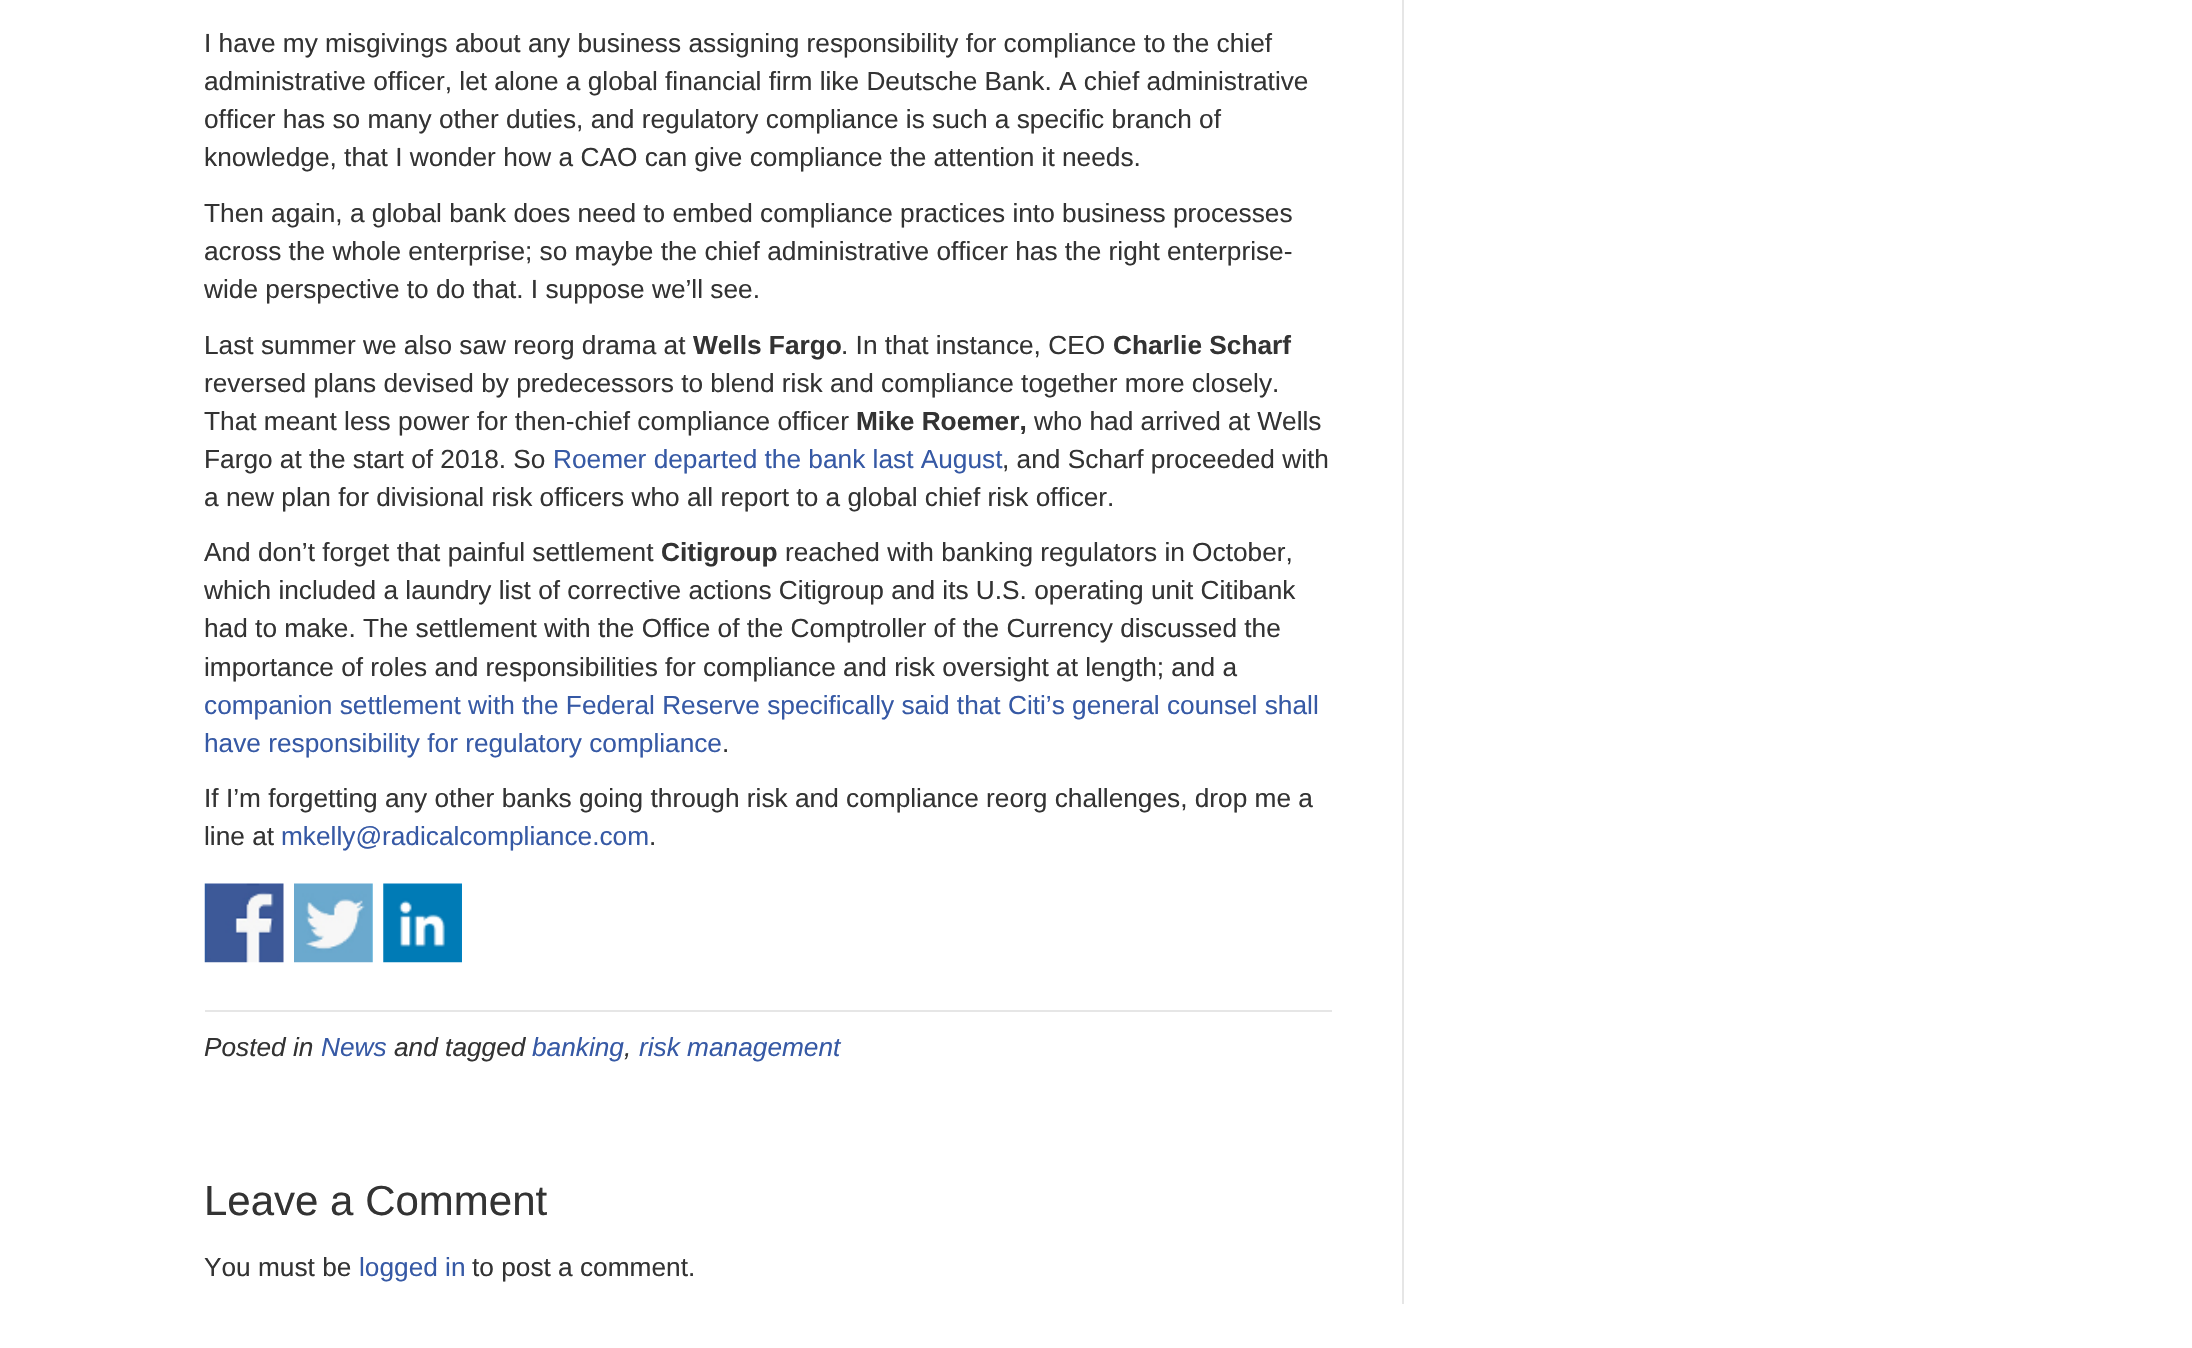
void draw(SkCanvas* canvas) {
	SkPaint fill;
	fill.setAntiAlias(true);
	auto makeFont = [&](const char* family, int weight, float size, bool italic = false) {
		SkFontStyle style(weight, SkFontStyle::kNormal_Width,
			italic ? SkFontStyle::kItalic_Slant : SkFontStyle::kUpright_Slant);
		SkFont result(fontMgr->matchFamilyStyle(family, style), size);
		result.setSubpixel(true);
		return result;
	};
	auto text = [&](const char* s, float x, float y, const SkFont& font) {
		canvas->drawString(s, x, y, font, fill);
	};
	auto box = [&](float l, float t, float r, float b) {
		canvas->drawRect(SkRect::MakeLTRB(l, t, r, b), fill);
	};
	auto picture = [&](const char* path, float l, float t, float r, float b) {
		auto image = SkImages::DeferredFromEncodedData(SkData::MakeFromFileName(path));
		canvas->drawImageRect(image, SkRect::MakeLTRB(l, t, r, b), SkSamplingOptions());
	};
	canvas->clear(0xFFFFFFFF);
	fill.setColor(0xFFE6E6E6);
	box(1402, 0, 1404, 1304);
	picture("image0.png", 204, 883, 284, 963);
	picture("image1.png", 294, 883, 373, 963);
	picture("image2.png", 383, 883, 462, 963);
	box(205, 1010, 1332, 1012);
	auto font1 = makeFont("Liberation Sans", 400, 26.25f);
	fill.setColor(0xFF333333);
	text("I have my misgivings about any business assigning responsibility for compliance to the chief", 204, 52, font1);
	text("administrative officer, let alone a global financial firm like Deutsche Bank. A chief administrative", 204, 90, font1);
	text("officer has so many other duties, and regulatory compliance is such a specific branch of", 204, 128, font1);
	text("knowledge, that I wonder how a CAO can give compliance the attention it needs.", 204, 166, font1);
	text("Then again, a global bank does need to embed compliance practices into business processes", 204, 222, font1);
	text("across the whole enterprise; so maybe the chief administrative officer has the right enterprise-", 204, 260, font1);
	text("wide perspective to do that. I suppose we’ll see.", 204, 298, font1);
	text("Last summer we also saw reorg drama at", 204, 354, font1);
	auto font2 = makeFont("Liberation Sans", 700, 26.25f);
	text("Wells Fargo", 693, 354, font2);
	text(". In that instance, CEO", 841, 354, font1);
	text("Charlie Scharf", 1113, 354, font2);
	text("reversed plans devised by predecessors to blend risk and compliance together more closely.", 204, 392, font1);
	text("That meant less power for then-chief compliance officer", 204, 430, font1);
	text("Mike Roemer,", 856, 430, font2);
	text("who had arrived at Wells", 1034, 430, font1);
	text("Fargo at the start of 2018. So", 204, 468, font1);
	fill.setColor(0xFF3659A5);
	text("Roemer departed the bank last August", 553, 468, font1);
	fill.setColor(0xFF333333);
	text(", and Scharf proceeded with", 1002, 468, font1);
	text("a new plan for divisional risk officers who all report to a global chief risk officer.", 204, 506, font1);
	text("And don’t forget that painful settlement", 204, 561, font1);
	text("Citigroup", 661, 561, font2);
	text("reached with banking regulators in October,", 785, 561, font1);
	text("which included a laundry list of corrective actions Citigroup and its U.S. operating unit Citibank", 204, 599, font1);
	text("had to make. The settlement with the Office of the Comptroller of the Currency discussed the", 204, 637, font1);
	text("importance of roles and responsibilities for compliance and risk oversight at length; and a", 204, 676, font1);
	fill.setColor(0xFF3659A5);
	text("companion settlement with the Federal Reserve specifically said that Citi’s general counsel shall", 204, 714, font1);
	text("have responsibility for regulatory compliance", 204, 752, font1);
	fill.setColor(0xFF333333);
	text(".", 722, 752, font1);
	text("If I’m forgetting any other banks going through risk and compliance reorg challenges, drop me a", 204, 807, font1);
	text("line at", 204, 845, font1);
	fill.setColor(0xFF3659A5);
	text("mkelly@radicalcompliance.com", 281, 845, font1);
	fill.setColor(0xFF333333);
	text(".", 649, 845, font1);
	auto font3 = makeFont("Liberation Sans", 400, 26.25f, true);
	text("Posted in", 204, 1056, font3);
	fill.setColor(0xFF3659A5);
	text("News", 321, 1056, font3);
	fill.setColor(0xFF333333);
	text("and tagged", 394, 1056, font3);
	fill.setColor(0xFF3659A5);
	text("banking", 532, 1056, font3);
	fill.setColor(0xFF333333);
	text(",", 624, 1056, font3);
	fill.setColor(0xFF3659A5);
	text("risk management", 639, 1056, font3);
	auto font4 = makeFont("Liberation Sans", 400, 42);
	fill.setColor(0xFF333333);
	text("Leave a Comment", 204, 1215, font4);
	text("You must be", 204, 1276, font1);
	fill.setColor(0xFF3659A5);
	text("logged in", 359, 1276, font1);
	fill.setColor(0xFF333333);
	text("to post a comment.", 472, 1276, font1);
}
